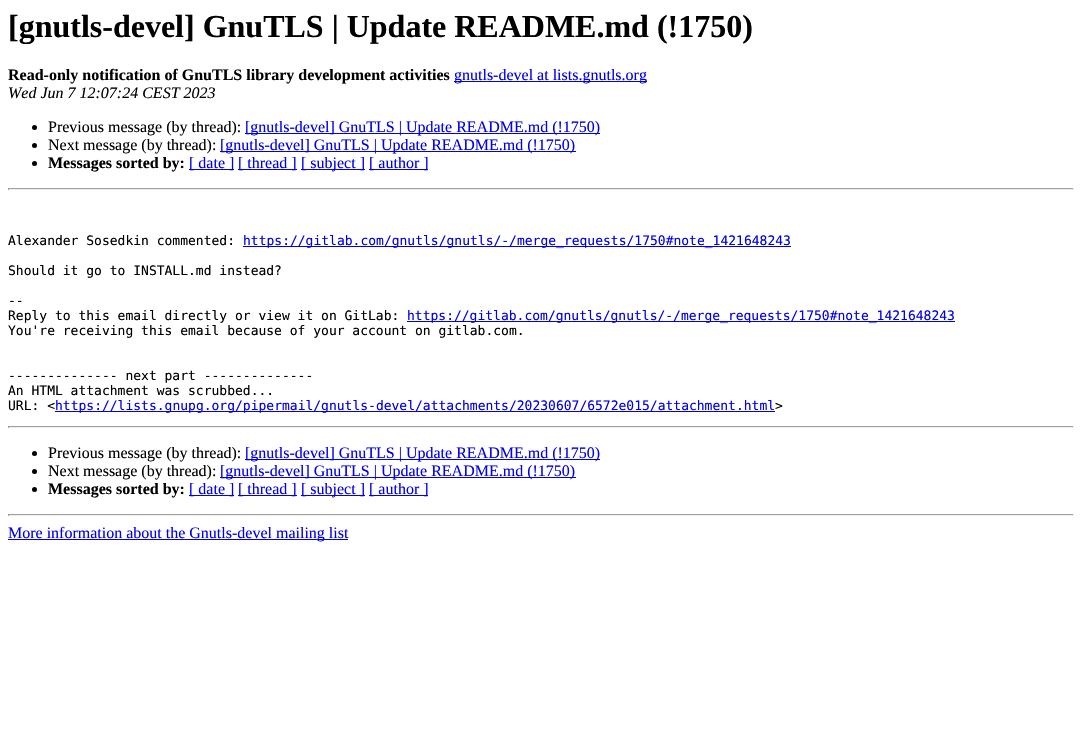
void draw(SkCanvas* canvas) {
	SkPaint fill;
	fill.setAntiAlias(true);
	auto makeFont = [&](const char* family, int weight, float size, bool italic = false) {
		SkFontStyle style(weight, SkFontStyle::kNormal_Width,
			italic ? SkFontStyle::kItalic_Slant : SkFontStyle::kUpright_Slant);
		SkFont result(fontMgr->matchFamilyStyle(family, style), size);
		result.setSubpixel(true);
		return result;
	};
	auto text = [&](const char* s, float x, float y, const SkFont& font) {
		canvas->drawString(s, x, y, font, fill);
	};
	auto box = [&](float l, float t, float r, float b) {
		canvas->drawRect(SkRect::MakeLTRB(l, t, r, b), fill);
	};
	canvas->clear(0xFFFFFFFF);
	fill.setColor(0xFF0000EE);
	box(454, 81, 647, 82);
	fill.setColor(0xFF000000);
	canvas->drawCircle(34.5f, 127.5f, 2.5f, fill);
	fill.setColor(0xFF0000EE);
	box(245, 133, 600, 134);
	fill.setColor(0xFF000000);
	canvas->drawCircle(34.5f, 145.5f, 2.5f, fill);
	fill.setColor(0xFF0000EE);
	box(220, 151, 576, 152);
	fill.setColor(0xFF000000);
	canvas->drawCircle(34.5f, 163.5f, 2.5f, fill);
	fill.setColor(0xFF0000EE);
	box(189, 169, 234, 170);
	box(238, 169, 297, 170);
	box(301, 169, 365, 170);
	box(369, 169, 428, 170);
	fill.setColor(0xFF9F9F9F);
	box(8, 188, 1074, 189);
	fill.setColor(0xFFEEEEEE);
	box(1073, 188, 1074, 190);
	box(8, 189, 1074, 190);
	fill.setColor(0xFF9F9F9F);
	box(8, 188, 9, 190);
	fill.setColor(0xFF0000EE);
	box(243, 246, 791, 247);
	box(407, 321, 955, 322);
	box(55, 411, 775, 412);
	fill.setColor(0xFF9F9F9F);
	box(8, 426, 1074, 427);
	fill.setColor(0xFFEEEEEE);
	box(1073, 426, 1074, 428);
	box(8, 427, 1074, 428);
	fill.setColor(0xFF9F9F9F);
	box(8, 426, 9, 428);
	fill.setColor(0xFF000000);
	canvas->drawCircle(34.5f, 453.5f, 2.5f, fill);
	fill.setColor(0xFF0000EE);
	box(245, 459, 600, 460);
	fill.setColor(0xFF000000);
	canvas->drawCircle(34.5f, 471.5f, 2.5f, fill);
	fill.setColor(0xFF0000EE);
	box(220, 477, 576, 478);
	fill.setColor(0xFF000000);
	canvas->drawCircle(34.5f, 489.5f, 2.5f, fill);
	fill.setColor(0xFF0000EE);
	box(189, 495, 234, 496);
	box(238, 495, 297, 496);
	box(301, 495, 365, 496);
	box(369, 495, 428, 496);
	fill.setColor(0xFF9F9F9F);
	box(8, 514, 1074, 515);
	fill.setColor(0xFFEEEEEE);
	box(1073, 514, 1074, 516);
	box(8, 515, 1074, 516);
	fill.setColor(0xFF9F9F9F);
	box(8, 514, 9, 516);
	fill.setColor(0xFF0000EE);
	box(8, 539, 348, 540);
	auto font1 = makeFont("Liberation Serif", 700, 32);
	fill.setColor(0xFF000000);
	text("[gnutls-devel] GnuTLS | Update README.md (!1750)", 8, 37, font1);
	auto font2 = makeFont("Liberation Serif", 700, 16);
	text("Read-only notification of GnuTLS library development activities", 8, 80, font2);
	auto font3 = makeFont("Liberation Serif", 400, 16);
	fill.setColor(0xFF0000EE);
	text("gnutls-devel at lists.gnutls.org", 454, 80, font3);
	auto font4 = makeFont("Liberation Serif", 400, 16, true);
	fill.setColor(0xFF000000);
	text("Wed Jun 7 12:07:24 CEST 2023", 8, 98, font4);
	text("Previous message (by thread):", 48, 132, font3);
	fill.setColor(0xFF0000EE);
	text("[gnutls-devel] GnuTLS | Update README.md (!1750)", 245, 132, font3);
	fill.setColor(0xFF000000);
	text("Next message (by thread):", 48, 150, font3);
	fill.setColor(0xFF0000EE);
	text("[gnutls-devel] GnuTLS | Update README.md (!1750)", 220, 150, font3);
	fill.setColor(0xFF000000);
	text("Messages sorted by:", 48, 168, font2);
	fill.setColor(0xFF0000EE);
	text("[ date ]", 189, 168, font3);
	text("[ thread ]", 238, 168, font3);
	text("[ subject ]", 301, 168, font3);
	text("[ author ]", 369, 168, font3);
	auto font5 = makeFont("DejaVu Sans Mono", 400, 13);
	fill.setColor(0xFF000000);
	text("Alexander Sosedkin commented:", 8, 245, font5);
	fill.setColor(0xFF0000EE);
	text("https://gitlab.com/gnutls/gnutls/-/merge_requests/1750#note_1421648243", 243, 245, font5);
	fill.setColor(0xFF000000);
	text("Should it go to INSTALL.md instead?", 8, 275, font5);
	text("--", 8, 305, font5);
	text("Reply to this email directly or view it on GitLab:", 8, 320, font5);
	fill.setColor(0xFF0000EE);
	text("https://gitlab.com/gnutls/gnutls/-/merge_requests/1750#note_1421648243", 407, 320, font5);
	fill.setColor(0xFF000000);
	text("You're receiving this email because of your account on gitlab.com.", 8, 335, font5);
	text("-------------- next part --------------", 8, 380, font5);
	text("An HTML attachment was scrubbed...", 8, 395, font5);
	text("URL: <", 8, 410, font5);
	fill.setColor(0xFF0000EE);
	text("https://lists.gnupg.org/pipermail/gnutls-devel/attachments/20230607/6572e015/attachment.html", 55, 410, font5);
	fill.setColor(0xFF000000);
	text(">", 775, 410, font5);
	text("Previous message (by thread):", 48, 458, font3);
	fill.setColor(0xFF0000EE);
	text("[gnutls-devel] GnuTLS | Update README.md (!1750)", 245, 458, font3);
	fill.setColor(0xFF000000);
	text("Next message (by thread):", 48, 476, font3);
	fill.setColor(0xFF0000EE);
	text("[gnutls-devel] GnuTLS | Update README.md (!1750)", 220, 476, font3);
	fill.setColor(0xFF000000);
	text("Messages sorted by:", 48, 494, font2);
	fill.setColor(0xFF0000EE);
	text("[ date ]", 189, 494, font3);
	text("[ thread ]", 238, 494, font3);
	text("[ subject ]", 301, 494, font3);
	text("[ author ]", 369, 494, font3);
	text("More information about the Gnutls-devel mailing list", 8, 538, font3);
}
